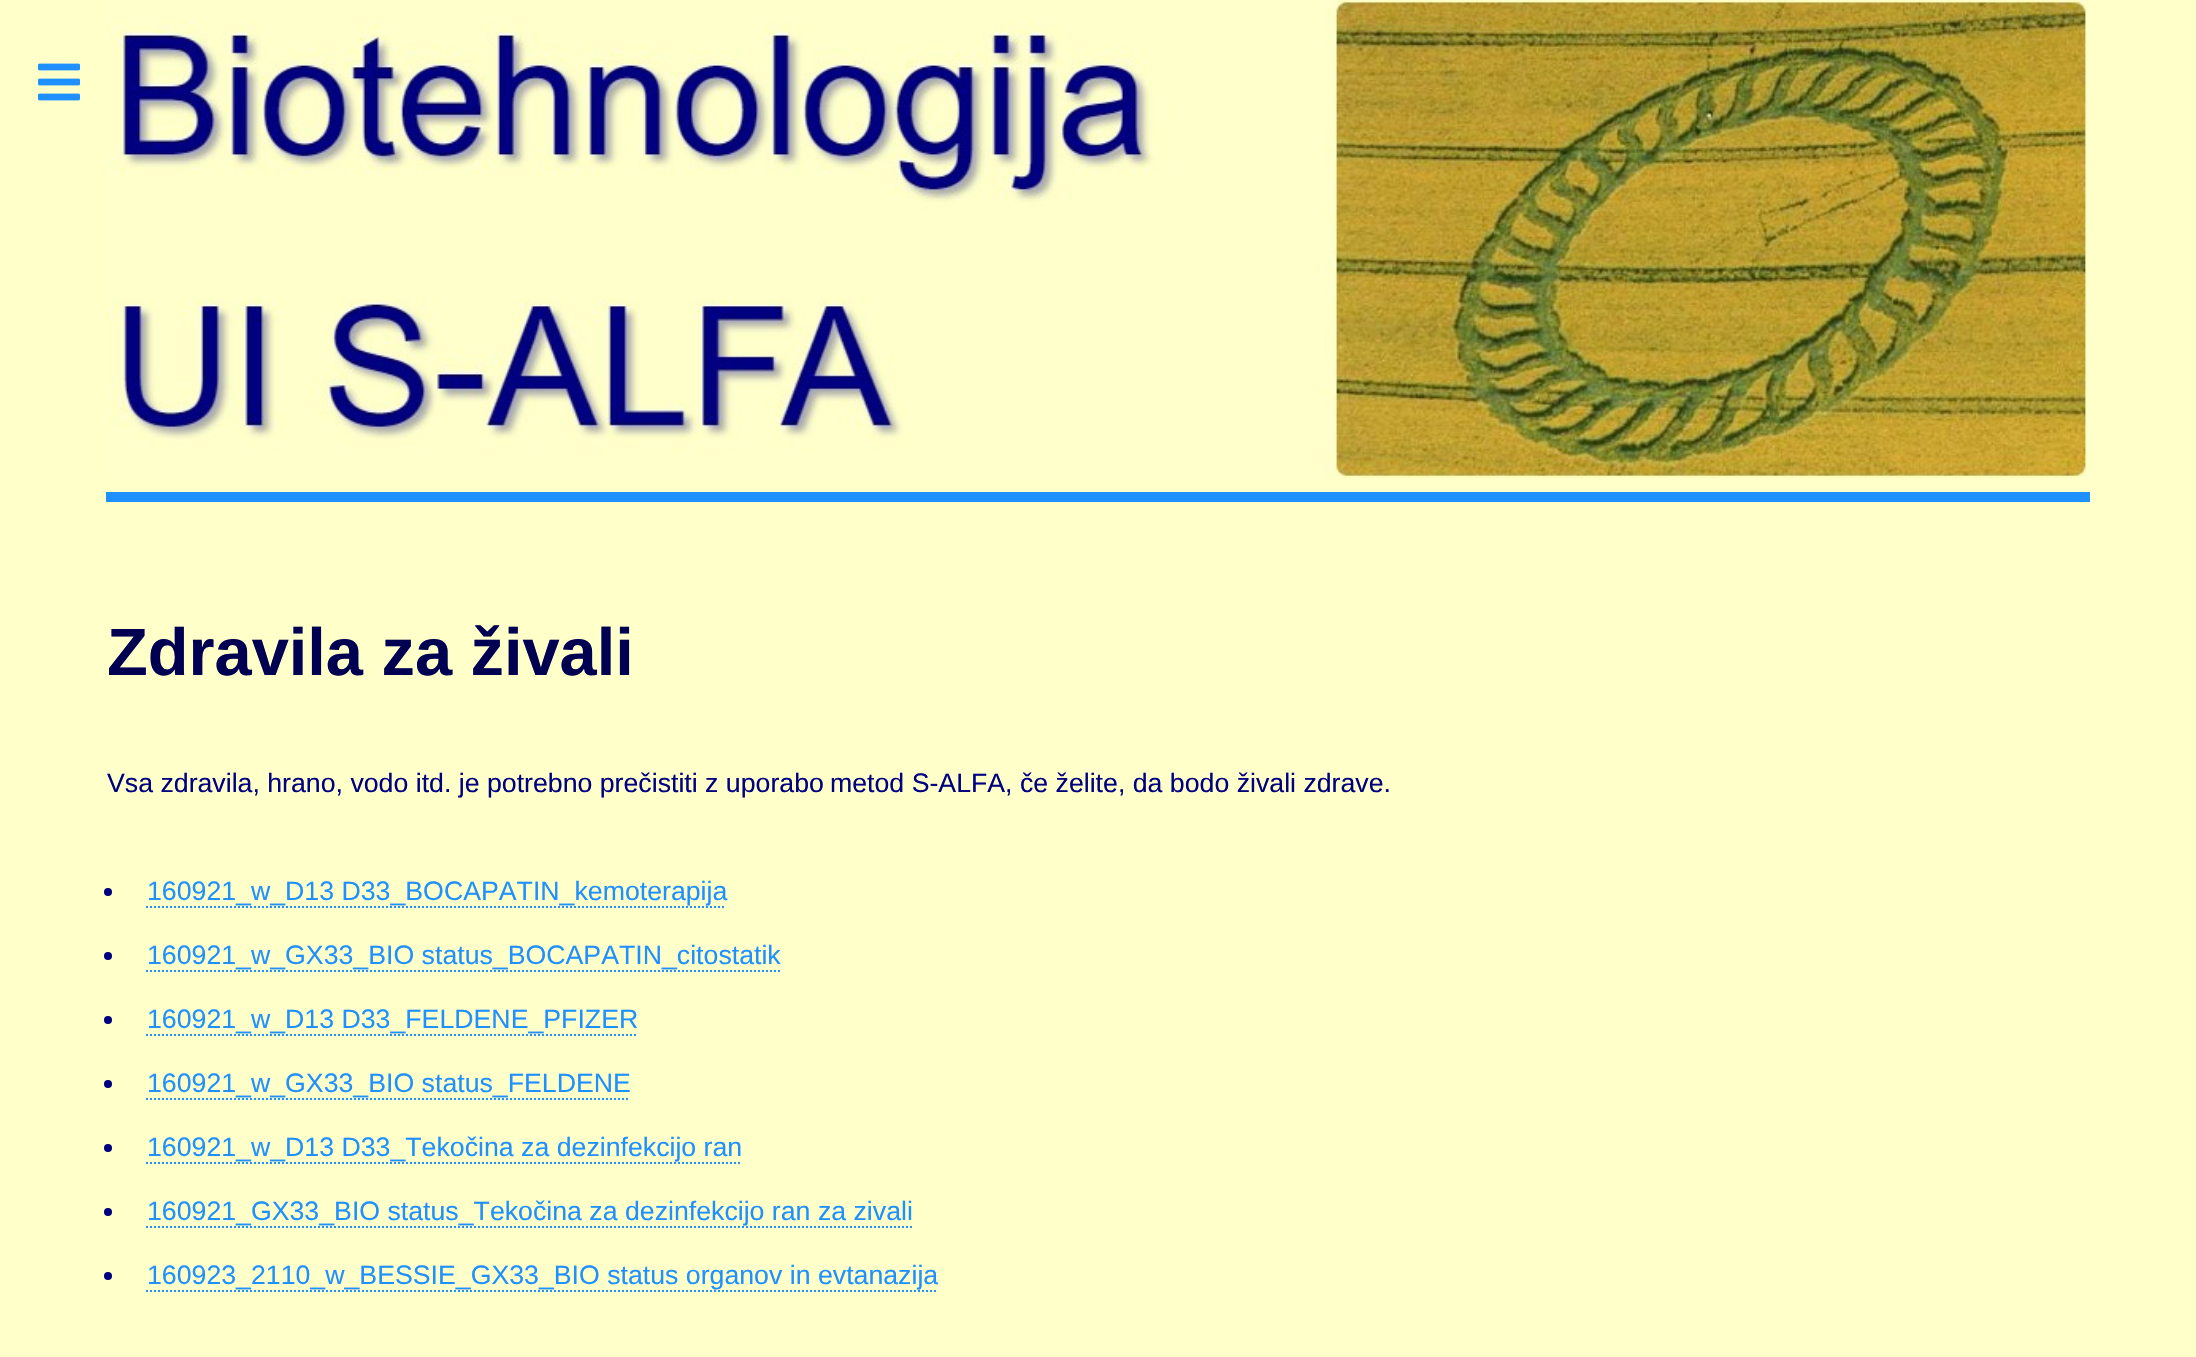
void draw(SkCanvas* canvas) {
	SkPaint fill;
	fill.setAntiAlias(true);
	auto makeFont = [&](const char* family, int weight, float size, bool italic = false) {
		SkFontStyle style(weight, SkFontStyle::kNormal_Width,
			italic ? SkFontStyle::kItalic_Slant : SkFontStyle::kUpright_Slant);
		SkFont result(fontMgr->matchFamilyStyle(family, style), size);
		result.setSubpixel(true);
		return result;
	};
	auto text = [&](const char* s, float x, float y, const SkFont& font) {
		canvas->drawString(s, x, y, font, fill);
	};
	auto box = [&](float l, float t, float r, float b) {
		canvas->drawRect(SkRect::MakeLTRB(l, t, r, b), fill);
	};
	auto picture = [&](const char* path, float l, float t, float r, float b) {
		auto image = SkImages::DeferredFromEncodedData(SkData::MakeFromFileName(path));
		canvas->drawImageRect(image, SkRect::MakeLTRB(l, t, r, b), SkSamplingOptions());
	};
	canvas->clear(0xFFFFFFCA);
	picture("image0.png", 38, 63, 80, 101);
	fill.setColor(0xFF1E90FF);
	box(106, 492, 2090, 502);
	picture("image1.png", 106, 0, 2087, 479);
	fill.setColor(0xFF000080);
	canvas->drawCircle(108, 892, 4, fill);
	fill.setStyle(SkPaint::kStroke_Style);
	fill.setStrokeWidth(2);
	fill.setColor(0xFF1E90FF);
	fill.setPathEffect(SkDashPathEffect::Make({{2, 2}}, 0));
	canvas->drawPath(SkPathBuilder().moveTo(146, 907).lineTo(726, 907).detach(), fill);
	fill.setPathEffect(nullptr);
	fill.setStyle(SkPaint::kFill_Style);
	fill.setColor(0xFF000080);
	canvas->drawCircle(108, 956, 4, fill);
	fill.setStyle(SkPaint::kStroke_Style);
	fill.setColor(0xFF1E90FF);
	fill.setPathEffect(SkDashPathEffect::Make({{2, 2}}, 0));
	canvas->drawPath(SkPathBuilder().moveTo(146, 971).lineTo(780, 971).detach(), fill);
	fill.setPathEffect(nullptr);
	fill.setStyle(SkPaint::kFill_Style);
	fill.setColor(0xFF000080);
	canvas->drawCircle(108, 1020, 4, fill);
	fill.setStyle(SkPaint::kStroke_Style);
	fill.setColor(0xFF1E90FF);
	fill.setPathEffect(SkDashPathEffect::Make({{2, 2}}, 0));
	canvas->drawPath(SkPathBuilder().moveTo(146, 1035).lineTo(638, 1035).detach(), fill);
	fill.setPathEffect(nullptr);
	fill.setStyle(SkPaint::kFill_Style);
	fill.setColor(0xFF000080);
	canvas->drawCircle(108, 1084, 4, fill);
	fill.setStyle(SkPaint::kStroke_Style);
	fill.setColor(0xFF1E90FF);
	fill.setPathEffect(SkDashPathEffect::Make({{2, 2}}, 0));
	canvas->drawPath(SkPathBuilder().moveTo(146, 1099).lineTo(630, 1099).detach(), fill);
	fill.setPathEffect(nullptr);
	fill.setStyle(SkPaint::kFill_Style);
	fill.setColor(0xFF000080);
	canvas->drawCircle(108, 1148, 4, fill);
	fill.setStyle(SkPaint::kStroke_Style);
	fill.setColor(0xFF1E90FF);
	fill.setPathEffect(SkDashPathEffect::Make({{2, 2}}, 0));
	canvas->drawPath(SkPathBuilder().moveTo(146, 1163).lineTo(740, 1163).detach(), fill);
	fill.setPathEffect(nullptr);
	fill.setStyle(SkPaint::kFill_Style);
	fill.setColor(0xFF000080);
	canvas->drawCircle(108, 1212, 4, fill);
	fill.setStyle(SkPaint::kStroke_Style);
	fill.setColor(0xFF1E90FF);
	fill.setPathEffect(SkDashPathEffect::Make({{2, 2}}, 0));
	canvas->drawPath(SkPathBuilder().moveTo(146, 1227).lineTo(912, 1227).detach(), fill);
	fill.setPathEffect(nullptr);
	fill.setStyle(SkPaint::kFill_Style);
	fill.setColor(0xFF000080);
	canvas->drawCircle(108, 1276, 4, fill);
	fill.setStyle(SkPaint::kStroke_Style);
	fill.setColor(0xFF1E90FF);
	fill.setPathEffect(SkDashPathEffect::Make({{2, 2}}, 0));
	canvas->drawPath(SkPathBuilder().moveTo(146, 1291).lineTo(936, 1291).detach(), fill);
	fill.setPathEffect(nullptr);
	auto font1 = makeFont("Liberation Sans", 700, 66.75f);
	fill.setStyle(SkPaint::kFill_Style);
	fill.setColor(0xFF000053);
	text("Zdravila za živali", 107, 675, font1);
	auto font2 = makeFont("Liberation Sans", 400, 26.7f);
	fill.setColor(0xFF000080);
	text("Vsa zdravila, hrano, vodo itd. je potrebno prečistiti z uporabo", 107, 792, font2);
	text("metod S-ALFA, če želite, da bodo živali zdrave.", 830, 792, font2);
	fill.setColor(0xFF1E90FF);
	text("160921_w_D13 D33_BOCAPATIN_kemoterapija", 147, 900, font2);
	text("160921_w_GX33_BIO status_BOCAPATIN_citostatik", 147, 964, font2);
	text("160921_w_D13 D33_FELDENE_PFIZER", 147, 1028, font2);
	text("160921_w_GX33_BIO status_FELDENE", 147, 1092, font2);
	text("160921_w_D13 D33_Tekočina za dezinfekcijo ran", 147, 1156, font2);
	text("160921_GX33_BIO status_Tekočina za dezinfekcijo ran za zivali", 147, 1220, font2);
	text("160923_2110_w_BESSIE_GX33_BIO status organov in evtanazija", 147, 1284, font2);
}
